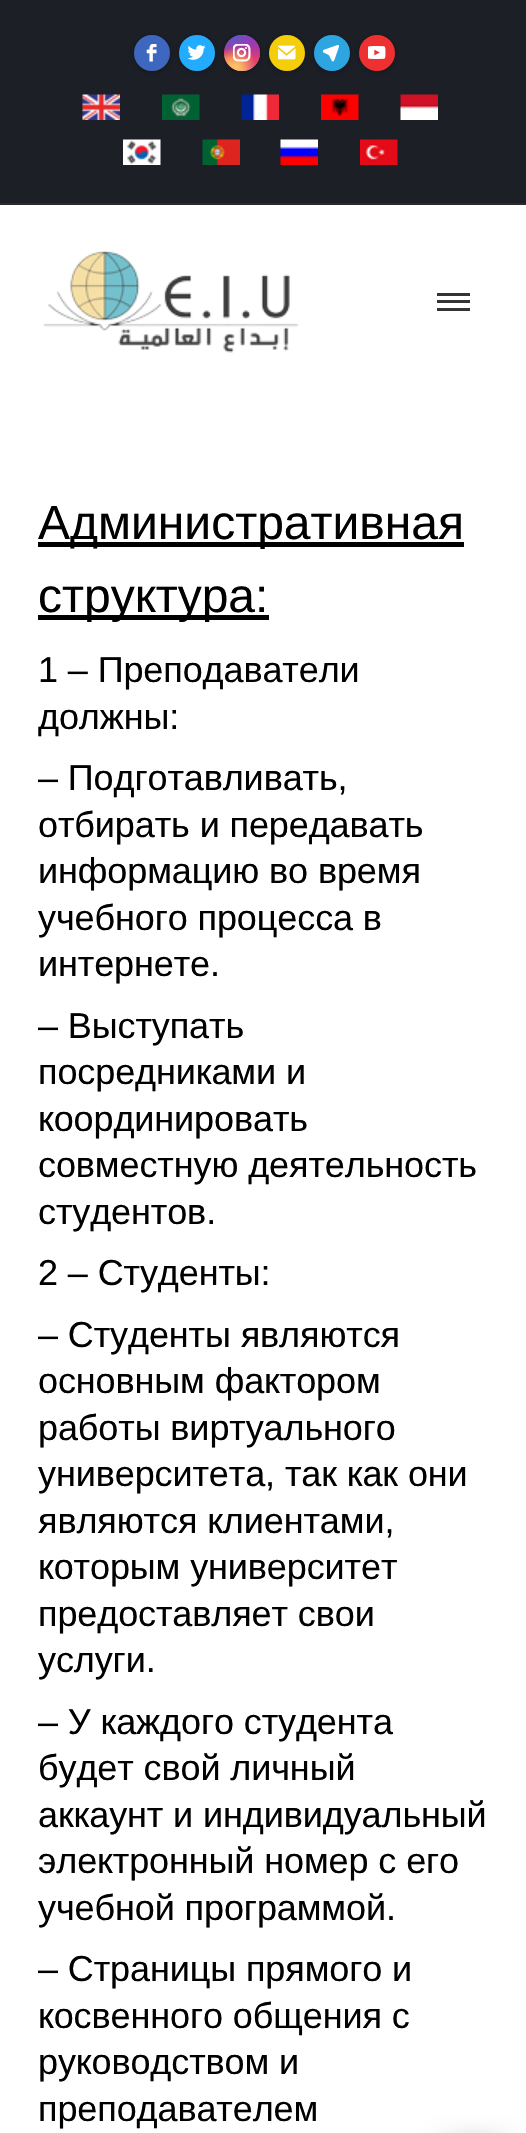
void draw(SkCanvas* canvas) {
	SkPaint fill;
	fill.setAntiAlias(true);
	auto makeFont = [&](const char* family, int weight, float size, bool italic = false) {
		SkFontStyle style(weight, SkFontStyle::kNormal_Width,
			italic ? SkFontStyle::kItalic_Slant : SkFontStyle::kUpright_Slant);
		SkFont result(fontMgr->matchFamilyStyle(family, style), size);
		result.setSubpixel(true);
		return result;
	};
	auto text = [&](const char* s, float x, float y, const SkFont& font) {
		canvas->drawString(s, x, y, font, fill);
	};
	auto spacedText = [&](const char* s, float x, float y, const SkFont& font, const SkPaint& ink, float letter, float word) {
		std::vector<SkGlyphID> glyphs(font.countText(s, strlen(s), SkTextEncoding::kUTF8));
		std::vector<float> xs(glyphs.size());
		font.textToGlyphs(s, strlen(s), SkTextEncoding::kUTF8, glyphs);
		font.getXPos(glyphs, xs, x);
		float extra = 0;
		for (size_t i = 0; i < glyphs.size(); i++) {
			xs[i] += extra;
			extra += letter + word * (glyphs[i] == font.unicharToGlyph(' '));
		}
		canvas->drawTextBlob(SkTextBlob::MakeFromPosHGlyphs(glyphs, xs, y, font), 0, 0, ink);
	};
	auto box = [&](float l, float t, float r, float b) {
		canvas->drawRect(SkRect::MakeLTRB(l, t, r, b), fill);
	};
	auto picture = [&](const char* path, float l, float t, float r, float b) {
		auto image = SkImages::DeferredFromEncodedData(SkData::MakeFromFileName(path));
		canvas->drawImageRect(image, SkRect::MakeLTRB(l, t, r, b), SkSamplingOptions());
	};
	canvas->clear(0xFFFFFFFF);
	fill.setColor(0xFF1C1F26);
	box(0, 0, 526, 203);
	fill.setColor(0xFF2B2B2B);
	box(0, 203, 526, 205);
	fill.setColor(0x47000000);
	fill.setMaskFilter(SkMaskFilter::MakeBlur(kNormal_SkBlurStyle, 3));
	canvas->drawRoundRect(SkRect::MakeLTRB(134, 36, 170, 72), 18, 18, fill);
	fill.setMaskFilter(nullptr);
	fill.setColor(0xFF3E68C0);
	canvas->drawCircle(152, 53, 18, fill);
	picture("image0.png", 146, 44, 157, 62);
	fill.setColor(0x47000000);
	fill.setMaskFilter(SkMaskFilter::MakeBlur(kNormal_SkBlurStyle, 3));
	canvas->drawRoundRect(SkRect::MakeLTRB(179, 36, 215, 72), 18, 18, fill);
	fill.setMaskFilter(nullptr);
	fill.setColor(0xFF23ABFF);
	canvas->drawCircle(197, 53, 18, fill);
	picture("image1.png", 188, 45, 206, 60);
	fill.setColor(0x47000000);
	fill.setMaskFilter(SkMaskFilter::MakeBlur(kNormal_SkBlurStyle, 3));
	canvas->drawRoundRect(SkRect::MakeLTRB(224, 36, 260, 72), 18, 18, fill);
	fill.setMaskFilter(nullptr);
	{
		const SkColor colors[] = {0xFF6559CA, 0xFFBC318F, 0xFFE33F5F, 0xFFF77638, 0xFFFEC66D};
		const float stops[] = {0, 0.3f, 0.5f, 0.7f, 1};
		const SkPoint ends[] = {{242, 35}, {242, 71}};
		fill.setShader(SkGradientShader::MakeLinear(ends, colors, stops, 5, SkTileMode::kClamp));
		fill.setAlpha(255);
	}
	canvas->drawCircle(242, 53, 18, fill);
	{
		const SkColor colors[] = {0xFFD9317A, 0x00D9317A};
		const float stops[] = {0, 1};
		fill.setShader(SkGradientShader::MakeRadial({260, 71}, 51, colors, stops, 2, SkTileMode::kClamp));
		fill.setAlpha(255);
	}
	canvas->drawCircle(242, 53, 18, fill);
	{
		const SkColor colors[] = {0xFF893DC2, 0x00893DC2};
		const float stops[] = {0, 0.5f};
		SkMatrix m = SkMatrix::Translate(245, 27).preScale(31, 61);
		fill.setShader(SkGradientShader::MakeRadial({0, 0}, 1, colors, stops, 2, SkTileMode::kClamp, 0, &m));
		fill.setAlpha(255);
	}
	canvas->drawCircle(242, 53, 18, fill);
	{
		const SkColor colors[] = {0xFF893DC2, 0x00893DC2};
		const float stops[] = {0, 0.5f};
		fill.setShader(SkGradientShader::MakeRadial({260, 35}, 51, colors, stops, 2, SkTileMode::kClamp));
		fill.setAlpha(255);
	}
	canvas->drawCircle(242, 53, 18, fill);
	{
		const SkColor colors[] = {0xFF5258CF, 0x005258CF};
		const float stops[] = {0, 0.5f};
		SkMatrix m = SkMatrix::Translate(231, 17).preScale(41, 76);
		fill.setShader(SkGradientShader::MakeRadial({0, 0}, 1, colors, stops, 2, SkTileMode::kClamp, 0, &m));
		fill.setAlpha(255);
	}
	canvas->drawCircle(242, 53, 18, fill);
	{
		const SkColor colors[] = {0xFF5258CF, 0x005258CF};
		const float stops[] = {0, 0.5f};
		SkMatrix m = SkMatrix::Translate(224, 26).preScale(51, 64);
		fill.setShader(SkGradientShader::MakeRadial({0, 0}, 1, colors, stops, 2, SkTileMode::kClamp, 0, &m));
		fill.setAlpha(255);
	}
	canvas->drawCircle(242, 53, 18, fill);
	{
		const SkColor colors[] = {0xFFFEC564, 0x00FEC564};
		const float stops[] = {0, 0.5f};
		fill.setShader(SkGradientShader::MakeRadial({224, 85}, 62, colors, stops, 2, SkTileMode::kClamp));
		fill.setAlpha(255);
	}
	canvas->drawCircle(242, 53, 18, fill);
	{
		const SkColor colors[] = {0xFFFEC564, 0x00FEC564};
		const float stops[] = {0, 0.5f};
		fill.setShader(SkGradientShader::MakeRadial({236, 67}, 40, colors, stops, 2, SkTileMode::kClamp));
		fill.setAlpha(255);
	}
	canvas->drawCircle(242, 53, 18, fill);
	picture("image2.png", 233, 44, 251, 62);
	fill.setShader(nullptr);
	fill.setColor(0x47000000);
	fill.setMaskFilter(SkMaskFilter::MakeBlur(kNormal_SkBlurStyle, 3));
	canvas->drawRoundRect(SkRect::MakeLTRB(269, 36, 305, 72), 18, 18, fill);
	fill.setMaskFilter(nullptr);
	fill.setColor(0xFFF4CD0B);
	canvas->drawCircle(287, 53, 18, fill);
	picture("image3.png", 278, 45, 296, 60);
	fill.setColor(0x47000000);
	fill.setMaskFilter(SkMaskFilter::MakeBlur(kNormal_SkBlurStyle, 3));
	canvas->drawRoundRect(SkRect::MakeLTRB(314, 36, 350, 72), 18, 18, fill);
	fill.setMaskFilter(nullptr);
	fill.setColor(0xFF2CA5E0);
	canvas->drawCircle(332, 53, 18, fill);
	picture("image4.png", 323, 45, 339, 62);
	fill.setColor(0x47000000);
	fill.setMaskFilter(SkMaskFilter::MakeBlur(kNormal_SkBlurStyle, 3));
	canvas->drawRoundRect(SkRect::MakeLTRB(359, 36, 395, 72), 18, 18, fill);
	fill.setMaskFilter(nullptr);
	fill.setColor(0xFFEE3130);
	canvas->drawCircle(377, 53, 18, fill);
	picture("image5.png", 368, 46, 386, 59);
	picture("image6.png", 82, 94, 120, 120);
	picture("image7.png", 162, 94, 200, 120);
	picture("image8.png", 241, 94, 279, 120);
	picture("image9.png", 321, 94, 359, 120);
	picture("image10.png", 400, 94, 438, 120);
	picture("image11.png", 123, 139, 161, 165);
	picture("image12.png", 202, 139, 240, 165);
	picture("image13.png", 280, 139, 318, 165);
	picture("image14.png", 360, 139, 398, 165);
	picture("image15.png", 43, 250, 299, 353);
	fill.setColor(0xFF333333);
	box(437, 293, 470, 296);
	box(437, 300, 470, 303);
	box(437, 308, 470, 311);
	fill.setColor(0xFF000000);
	box(38, 542, 464, 547);
	box(38, 615, 269, 620);
	fill.setColor(0x66000000);
	fill.setMaskFilter(SkMaskFilter::MakeBlur(kNormal_SkBlurStyle, 15));
	canvas->drawRoundRect(SkRect::MakeLTRB(444, 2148, 504, 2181), 3, 3, fill);
	fill.setMaskFilter(nullptr);
	auto font1 = makeFont("Liberation Sans", 400, 48);
	fill.setColor(0xFF000000);
	text("Административная", 38, 539, font1);
	text("структура:", 38, 612, font1);
	auto font2 = makeFont("Liberation Sans", 400, 36);
	spacedText("1 – Преподаватели", 38, 682, font2, fill, -0.1f, 0);
	spacedText("должны:", 38, 729, font2, fill, -0.1f, 0);
	spacedText("– Подготавливать,", 38, 790, font2, fill, -0.1f, 0);
	spacedText("отбирать и передавать", 38, 837, font2, fill, -0.1f, 0);
	spacedText("информацию во время", 38, 883, font2, fill, -0.1f, 0);
	spacedText("учебного процесса в", 38, 930, font2, fill, -0.1f, 0);
	spacedText("интернете.", 38, 976, font2, fill, -0.1f, 0);
	spacedText("– Выступать", 38, 1038, font2, fill, -0.1f, 0);
	spacedText("посредниками и", 38, 1084, font2, fill, -0.1f, 0);
	spacedText("координировать", 38, 1131, font2, fill, -0.1f, 0);
	spacedText("совместную деятельность", 38, 1177, font2, fill, -0.1f, 0);
	spacedText("студентов.", 38, 1224, font2, fill, -0.1f, 0);
	spacedText("2 – Студенты:", 38, 1285, font2, fill, -0.1f, 0);
	spacedText("– Студенты являются", 38, 1347, font2, fill, -0.1f, 0);
	spacedText("основным фактором", 38, 1393, font2, fill, -0.1f, 0);
	spacedText("работы виртуального", 38, 1440, font2, fill, -0.1f, 0);
	spacedText("университета, так как они", 38, 1486, font2, fill, -0.1f, 0);
	spacedText("являются клиентами,", 38, 1533, font2, fill, -0.1f, 0);
	spacedText("которым университет", 38, 1579, font2, fill, -0.1f, 0);
	spacedText("предоставляет свои", 38, 1626, font2, fill, -0.1f, 0);
	spacedText("услуги.", 38, 1672, font2, fill, -0.1f, 0);
	spacedText("– У каждого студента", 38, 1734, font2, fill, -0.1f, 0);
	spacedText("будет свой личный", 38, 1780, font2, fill, -0.1f, 0);
	spacedText("аккаунт и индивидуальный", 38, 1827, font2, fill, -0.1f, 0);
	spacedText("электронный номер с его", 38, 1873, font2, fill, -0.1f, 0);
	spacedText("учебной программой.", 38, 1920, font2, fill, -0.1f, 0);
	spacedText("– Страницы прямого и", 38, 1981, font2, fill, -0.1f, 0);
	spacedText("косвенного общения с", 38, 2028, font2, fill, -0.1f, 0);
	spacedText("руководством и", 38, 2074, font2, fill, -0.1f, 0);
	spacedText("преподавателем", 38, 2121, font2, fill, -0.1f, 0);
}
